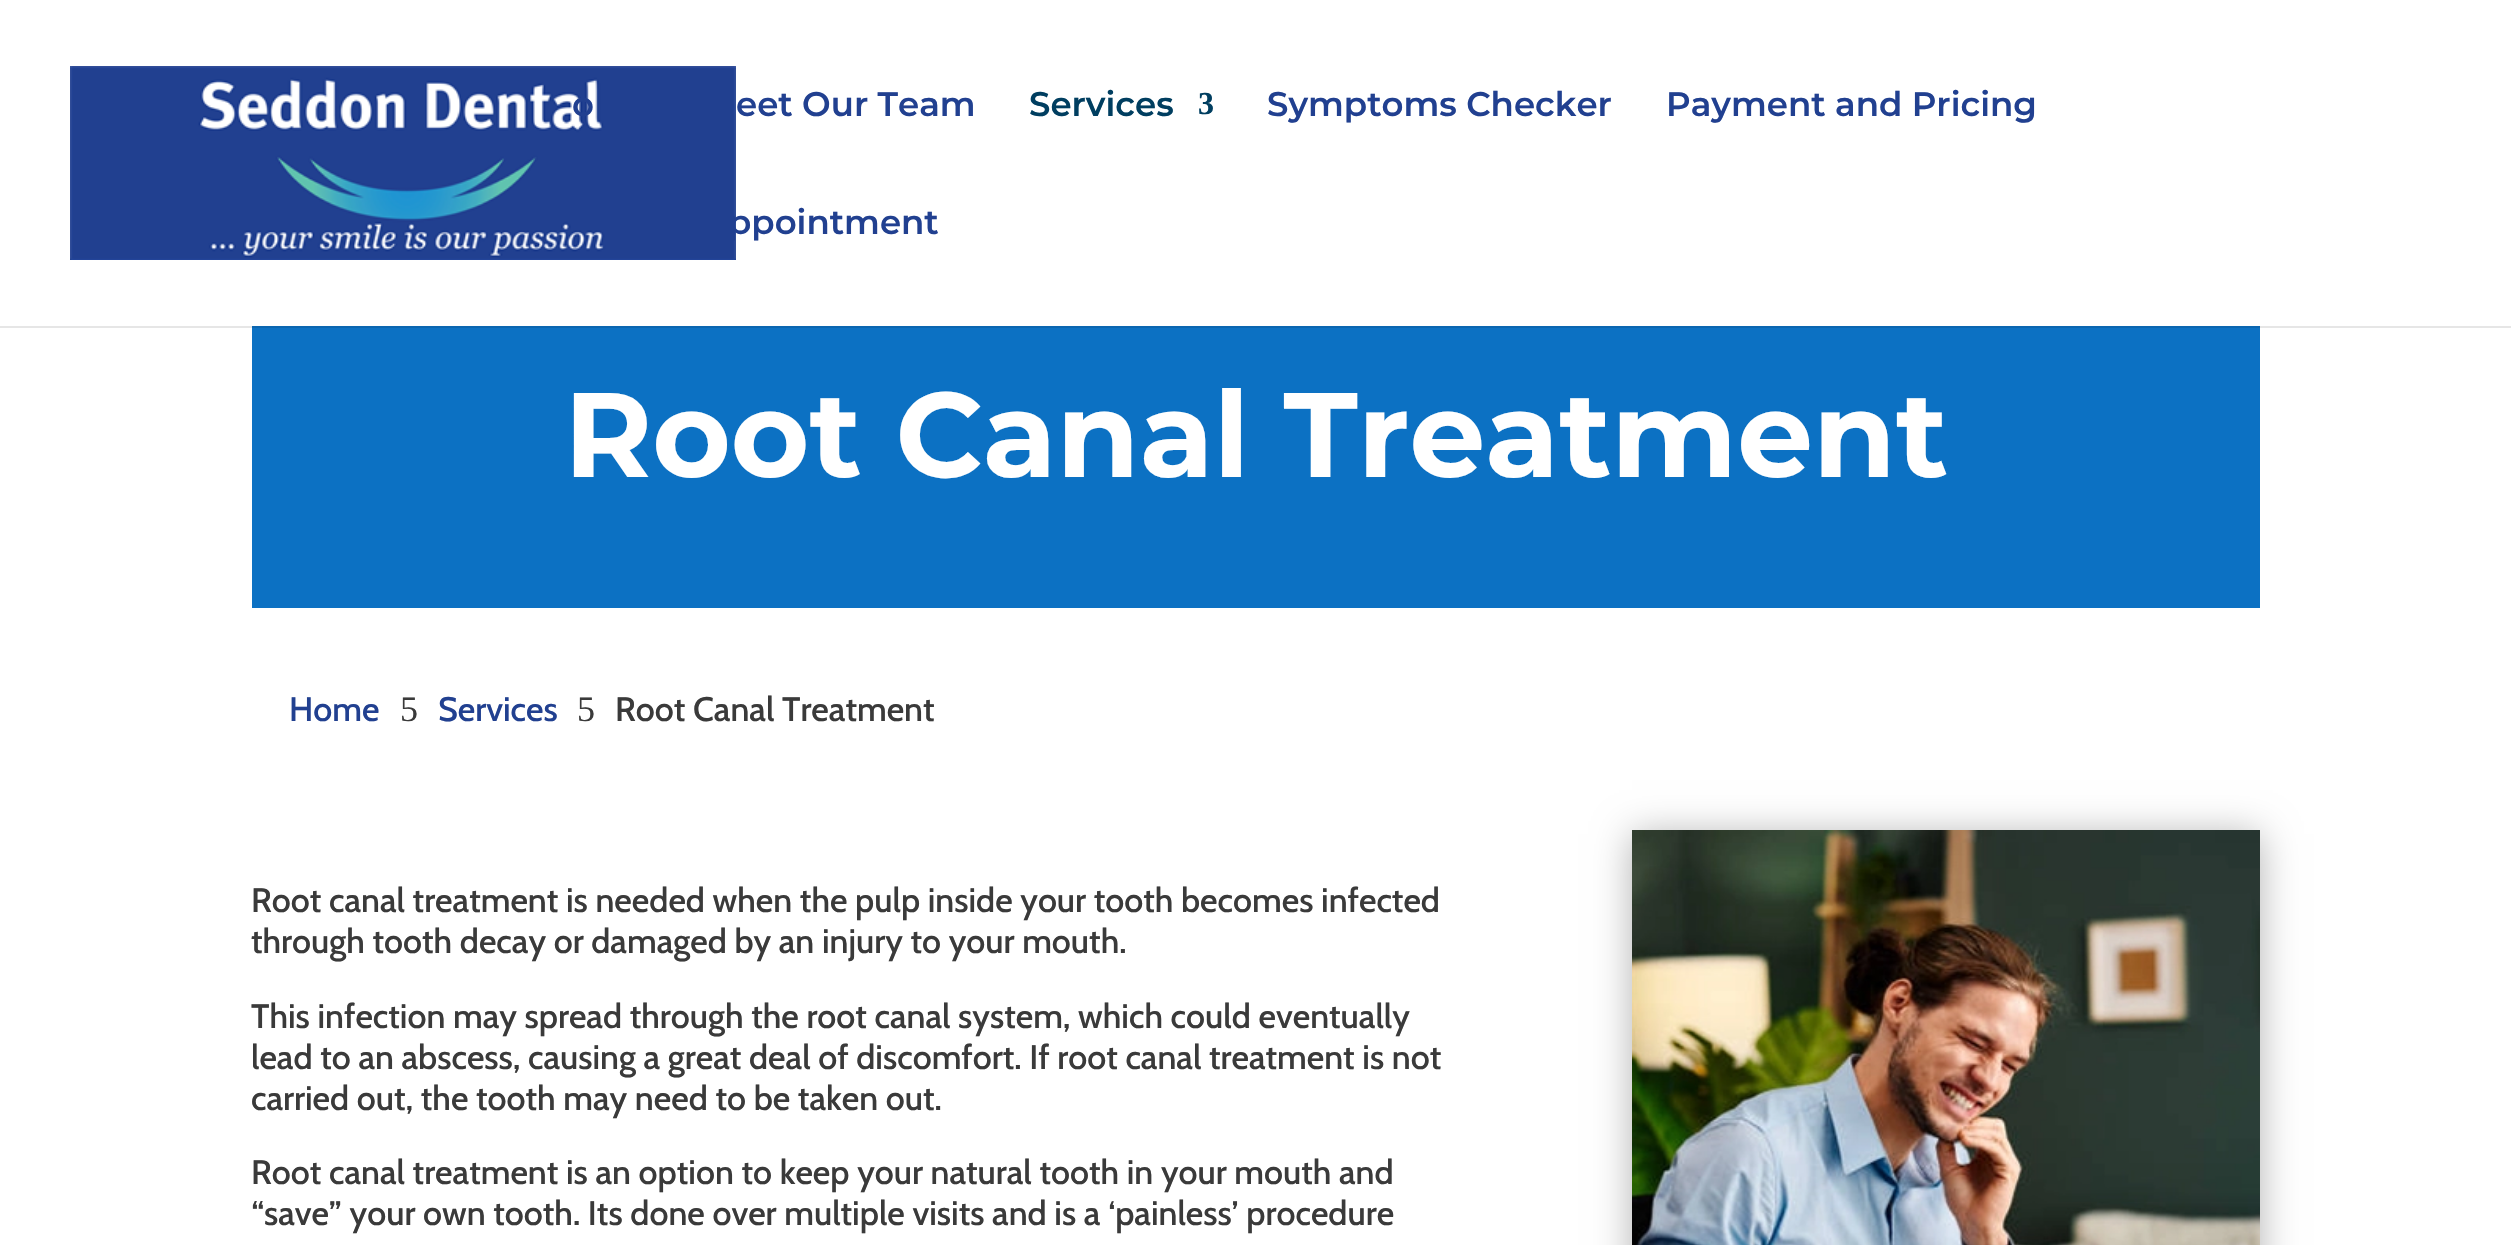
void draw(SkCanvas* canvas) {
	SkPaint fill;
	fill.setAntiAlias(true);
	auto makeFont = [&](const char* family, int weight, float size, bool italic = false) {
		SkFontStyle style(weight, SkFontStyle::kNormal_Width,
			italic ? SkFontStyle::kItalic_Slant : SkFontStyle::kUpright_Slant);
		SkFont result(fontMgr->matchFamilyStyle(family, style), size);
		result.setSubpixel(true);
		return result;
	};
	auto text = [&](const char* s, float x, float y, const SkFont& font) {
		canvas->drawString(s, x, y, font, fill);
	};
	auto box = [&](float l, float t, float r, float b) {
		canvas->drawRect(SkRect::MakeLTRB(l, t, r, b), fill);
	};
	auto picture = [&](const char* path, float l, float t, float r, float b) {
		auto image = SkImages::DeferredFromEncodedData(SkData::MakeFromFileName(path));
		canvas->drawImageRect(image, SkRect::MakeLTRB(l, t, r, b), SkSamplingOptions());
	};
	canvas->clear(0xFFFFFFFF);
	fill.setColor(0xFFE6E6E6);
	box(0, 326, 2511, 328);
	picture("image0.png", 70, 66, 736, 260);
	fill.setColor(0xFF0C71C3);
	box(252, 328, 2260, 608);
	fill.setColor(0xFF0B66B0);
	box(252, 326, 2260, 328);
	fill.setColor(0x4D000000);
	fill.setMaskFilter(SkMaskFilter::MakeBlur(kNormal_SkBlurStyle, 18));
	canvas->drawRect(SkRect::MakeLTRB(1632, 834, 2260, 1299), fill);
	fill.setMaskFilter(nullptr);
	picture("image1.png", 1632, 830, 2260, 1245);
	auto font1 = makeFont("Montserrat", 600, 34);
	fill.setColor(0xFF214090);
	text("o", 572, 116, font1);
	text("eet Our Team", 736, 116, font1);
	fill.setColor(0xFF003E60);
	text("Services", 1029, 116, font1);
	auto font2 = makeFont("Liberation Serif", 700, 32);
	text("3", 1198, 114, font2);
	fill.setColor(0xFF214090);
	text("Symptoms Checker", 1267, 116, font1);
	text("Payment and Pricing", 1666, 116, font1);
	text("ppointment", 728, 234, font1);
	auto font3 = makeFont("Montserrat", 700, 120);
	fill.setColor(0xFFFFFFFF);
	text("Root Canal Treatment", 564, 477, font3);
	auto font4 = makeFont("Cabin", 500, 34);
	fill.setColor(0xFF214090);
	text("Home", 289, 721, font4);
	auto font5 = makeFont("Liberation Serif", 400, 36);
	fill.setColor(0xFF3A3A3A);
	text("5", 400, 721, font5);
	fill.setColor(0xFF214090);
	text("Services", 438, 721, font4);
	fill.setColor(0xFF3A3A3A);
	text("5", 577, 721, font5);
	text("Root Canal Treatment", 615, 721, font4);
	text("Root canal treatment is needed when the pulp inside your tooth becomes infected", 251, 912, font4);
	text("through tooth decay or damaged by an injury to your mouth.", 251, 953, font4);
	text("This infection may spread through the root canal system, which could eventually", 251, 1028, font4);
	text("lead to an abscess, causing a great deal of discomfort. If root canal treatment is not", 251, 1069, font4);
	text("carried out, the tooth may need to be taken out.", 251, 1110, font4);
	text("Root canal treatment is an option to keep your natural tooth in your mouth and", 251, 1184, font4);
	text("“save” your own tooth. Its done over multiple visits and is a ‘painless’ procedure", 251, 1225, font4);
}
